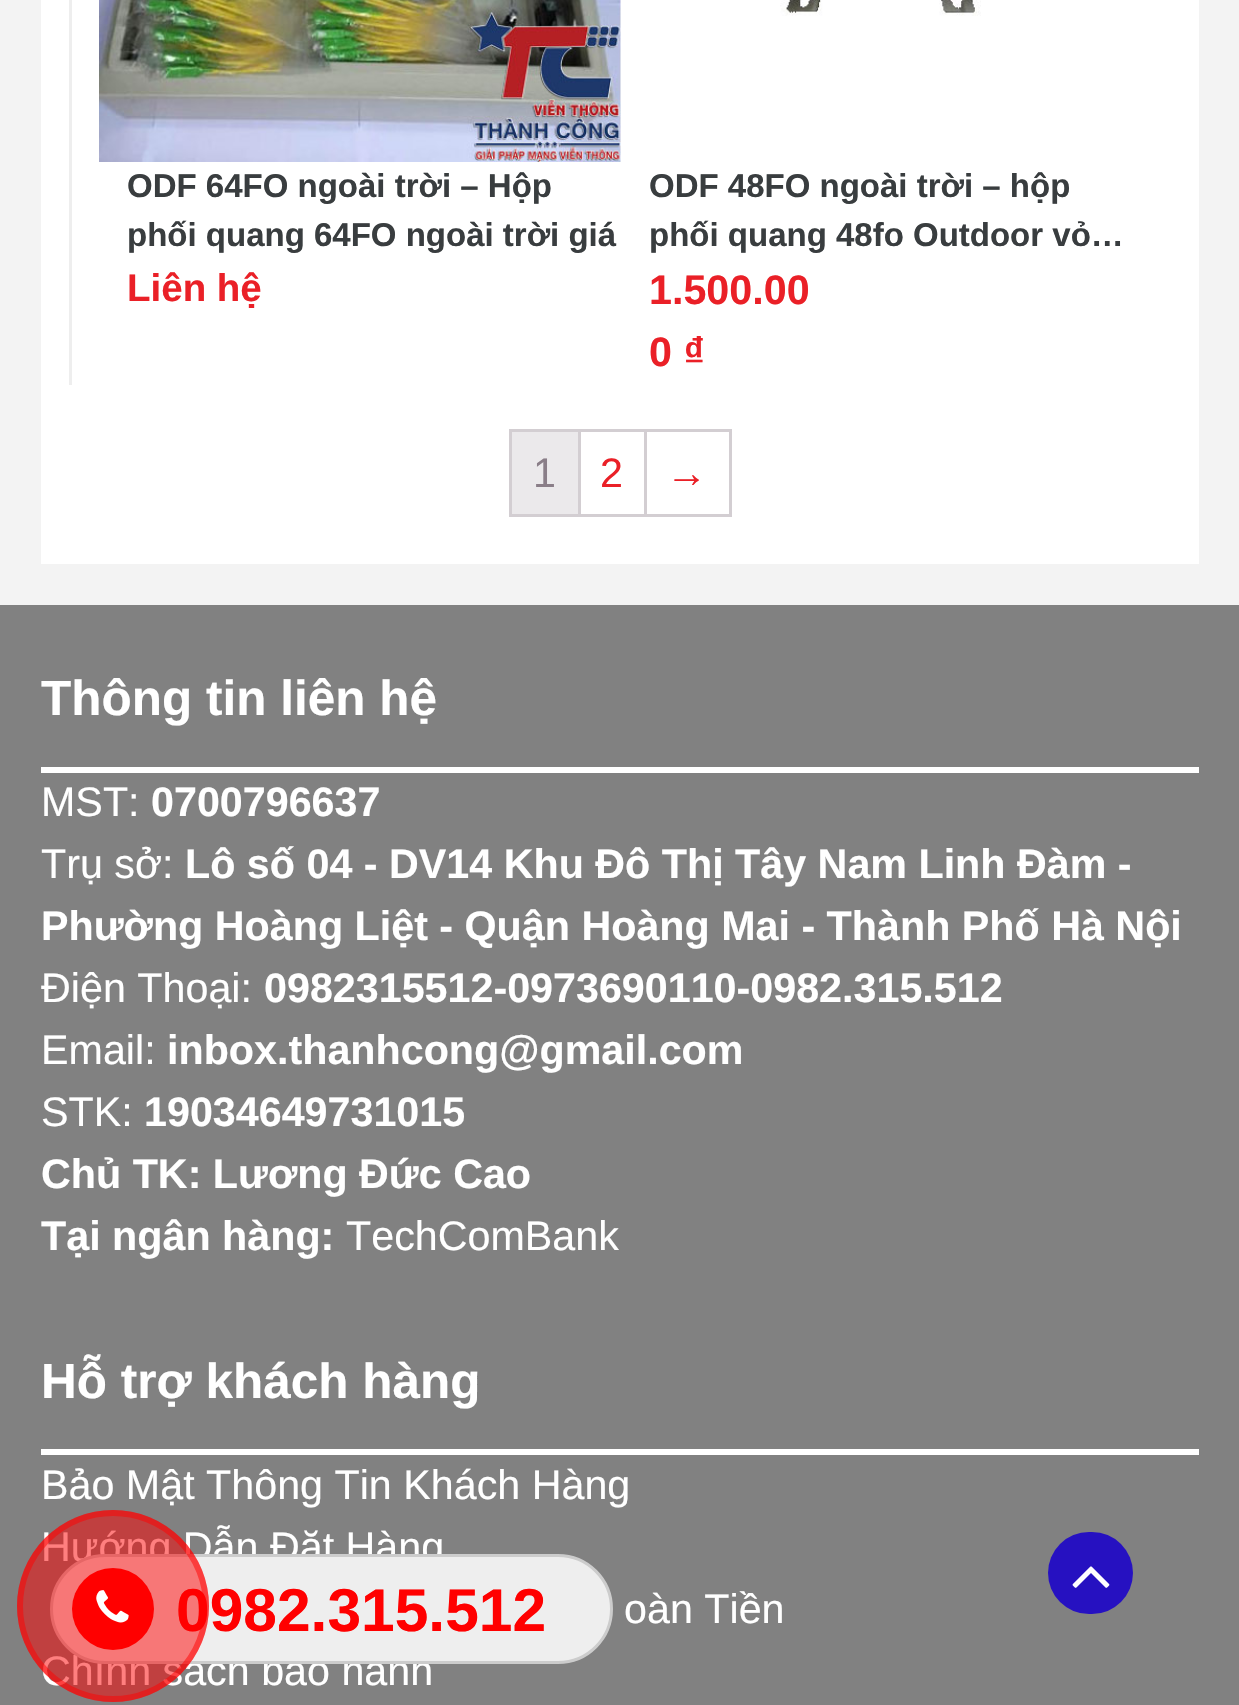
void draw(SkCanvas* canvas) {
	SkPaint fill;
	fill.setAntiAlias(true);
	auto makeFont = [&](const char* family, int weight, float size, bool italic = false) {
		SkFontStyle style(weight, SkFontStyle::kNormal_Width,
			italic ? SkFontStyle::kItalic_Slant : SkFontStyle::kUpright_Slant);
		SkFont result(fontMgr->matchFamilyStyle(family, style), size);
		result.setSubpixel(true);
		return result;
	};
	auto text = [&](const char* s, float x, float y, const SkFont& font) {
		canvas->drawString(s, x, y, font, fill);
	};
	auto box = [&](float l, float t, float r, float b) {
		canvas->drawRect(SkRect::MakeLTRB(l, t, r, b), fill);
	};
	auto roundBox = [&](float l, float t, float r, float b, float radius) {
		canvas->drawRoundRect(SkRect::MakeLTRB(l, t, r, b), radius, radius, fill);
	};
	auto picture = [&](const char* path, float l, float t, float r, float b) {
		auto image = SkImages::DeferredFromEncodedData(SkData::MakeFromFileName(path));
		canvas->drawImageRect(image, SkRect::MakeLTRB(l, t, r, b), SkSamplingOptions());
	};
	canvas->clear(0xFFF3F3F3);
	fill.setColor(0xFFFFFFFF);
	box(41, 0, 1199, 564);
	fill.setColor(0xFFEEEEEE);
	box(69, 0, 72, 385);
	picture("image0.png", 99, 0, 621, 162);
	picture("image1.png", 780, 0, 981, 16);
	fill.setColor(0xFFD3CED2);
	box(509, 429, 732, 432);
	box(509, 514, 732, 517);
	box(509, 429, 512, 517);
	box(578, 432, 581, 514);
	fill.setColor(0xFFEBE9EB);
	box(512, 432, 578, 514);
	fill.setColor(0xFFD3CED2);
	box(644, 432, 647, 514);
	box(729, 432, 732, 514);
	fill.setColor(0xFF818181);
	box(0, 605, 1239, 1705);
	fill.setColor(0xFFFFFFFF);
	box(41, 767, 1199, 773);
	box(41, 1449, 1199, 1455);
	fill.setColor(0xFF2611C1);
	roundBox(1048, 1532, 1133, 1614, 41);
	picture("image3.png", 1072, 1566, 1110, 1588);
	auto font1 = makeFont("Liberation Sans", 700, 33);
	fill.setColor(0xFF393D3F);
	text("ODF 64FO ngoài trời – Hộp", 127, 197, font1);
	text("phối quang 64FO ngoài trời giá", 127, 246, font1);
	auto font2 = makeFont("Liberation Sans", 700, 38.5f);
	fill.setColor(0xFFEA2027);
	text("Liên hệ", 127, 301, font2);
	fill.setColor(0xFF393D3F);
	text("ODF 48FO ngoài trời – hộp", 649, 197, font1);
	text("phối quang 48fo Outdoor vỏ…", 649, 246, font1);
	auto font3 = makeFont("Liberation Sans", 700, 41.25f);
	fill.setColor(0xFFEA2027);
	text("1.500.00", 649, 304, font3);
	text("0 ₫", 649, 366, font3);
	auto font4 = makeFont("Liberation Sans", 400, 41.25f);
	fill.setColor(0xFF8A7E88);
	text("1", 533, 487, font4);
	fill.setColor(0xFFEA2027);
	text("2", 600, 487, font4);
	text("→", 666, 487, font4);
	auto font5 = makeFont("Liberation Sans", 700, 49.5f);
	fill.setColor(0xFFFFFFFF);
	text("Thông tin liên hệ", 41, 715, font5);
	text("MST:", 41, 816, font4);
	text("0700796637", 151, 816, font3);
	text("Trụ sở:", 41, 878, font4);
	text("Lô số 04 - DV14 Khu Đô Thị Tây Nam Linh Đàm -", 185, 878, font3);
	text("Phường Hoàng Liệt - Quận Hoàng Mai - Thành Phố Hà Nội", 41, 940, font3);
	text("Điện Thoại:", 41, 1002, font4);
	text("0982315512-0973690110-0982.315.512", 264, 1002, font3);
	text("Email:", 41, 1064, font4);
	text("inbox.thanhcong@gmail.com", 167, 1064, font3);
	text("STK:", 41, 1126, font4);
	text("19034649731015", 144, 1126, font3);
	text("Chủ TK: Lương Đức Cao", 41, 1188, font3);
	text("Tại ngân hàng:", 41, 1250, font3);
	text("TechComBank", 346, 1250, font4);
	text("Hỗ trợ khách hàng", 41, 1398, font5);
	text("Bảo Mật Thông Tin Khách Hàng", 41, 1499, font4);
	text("Hướng Dẫn Đặt Hàng", 41, 1561, font4);
	text("oàn Tiền", 624, 1623, font4);
	text("Chính sách bảo hành", 41, 1685, font4);
	fill.setColor(0xFFEEEEEE);
	canvas->drawRoundRect(SkRect::MakeLTRB(51.5f, 1555.5f, 611.5f, 1662.5f), 53.5f, 53.5f, fill);
	fill.setStyle(SkPaint::kStroke_Style);
	fill.setStrokeWidth(3);
	fill.setColor(0xFFCCCCCC);
	canvas->drawRoundRect(SkRect::MakeLTRB(51.5f, 1555.5f, 611.5f, 1662.5f), 53.5f, 53.5f, fill);
	auto font6 = makeFont("Liberation Sans", 700, 60.5f);
	fill.setStyle(SkPaint::kFill_Style);
	fill.setColor(0xFFFF0000);
	text("0982.315.512", 176, 1631, font6);
	fill.setColor(0x80FF0000);
	canvas->drawCircle(113, 1606, 96, fill);
	fill.setStyle(SkPaint::kStroke_Style);
	fill.setStrokeWidth(6);
	canvas->drawCircle(113, 1606, 93, fill);
	fill.setStyle(SkPaint::kFill_Style);
	fill.setColor(0xFFFF0000);
	canvas->drawCircle(113, 1609, 41, fill);
	picture("image2.png", 96, 1590, 129, 1623);
}
